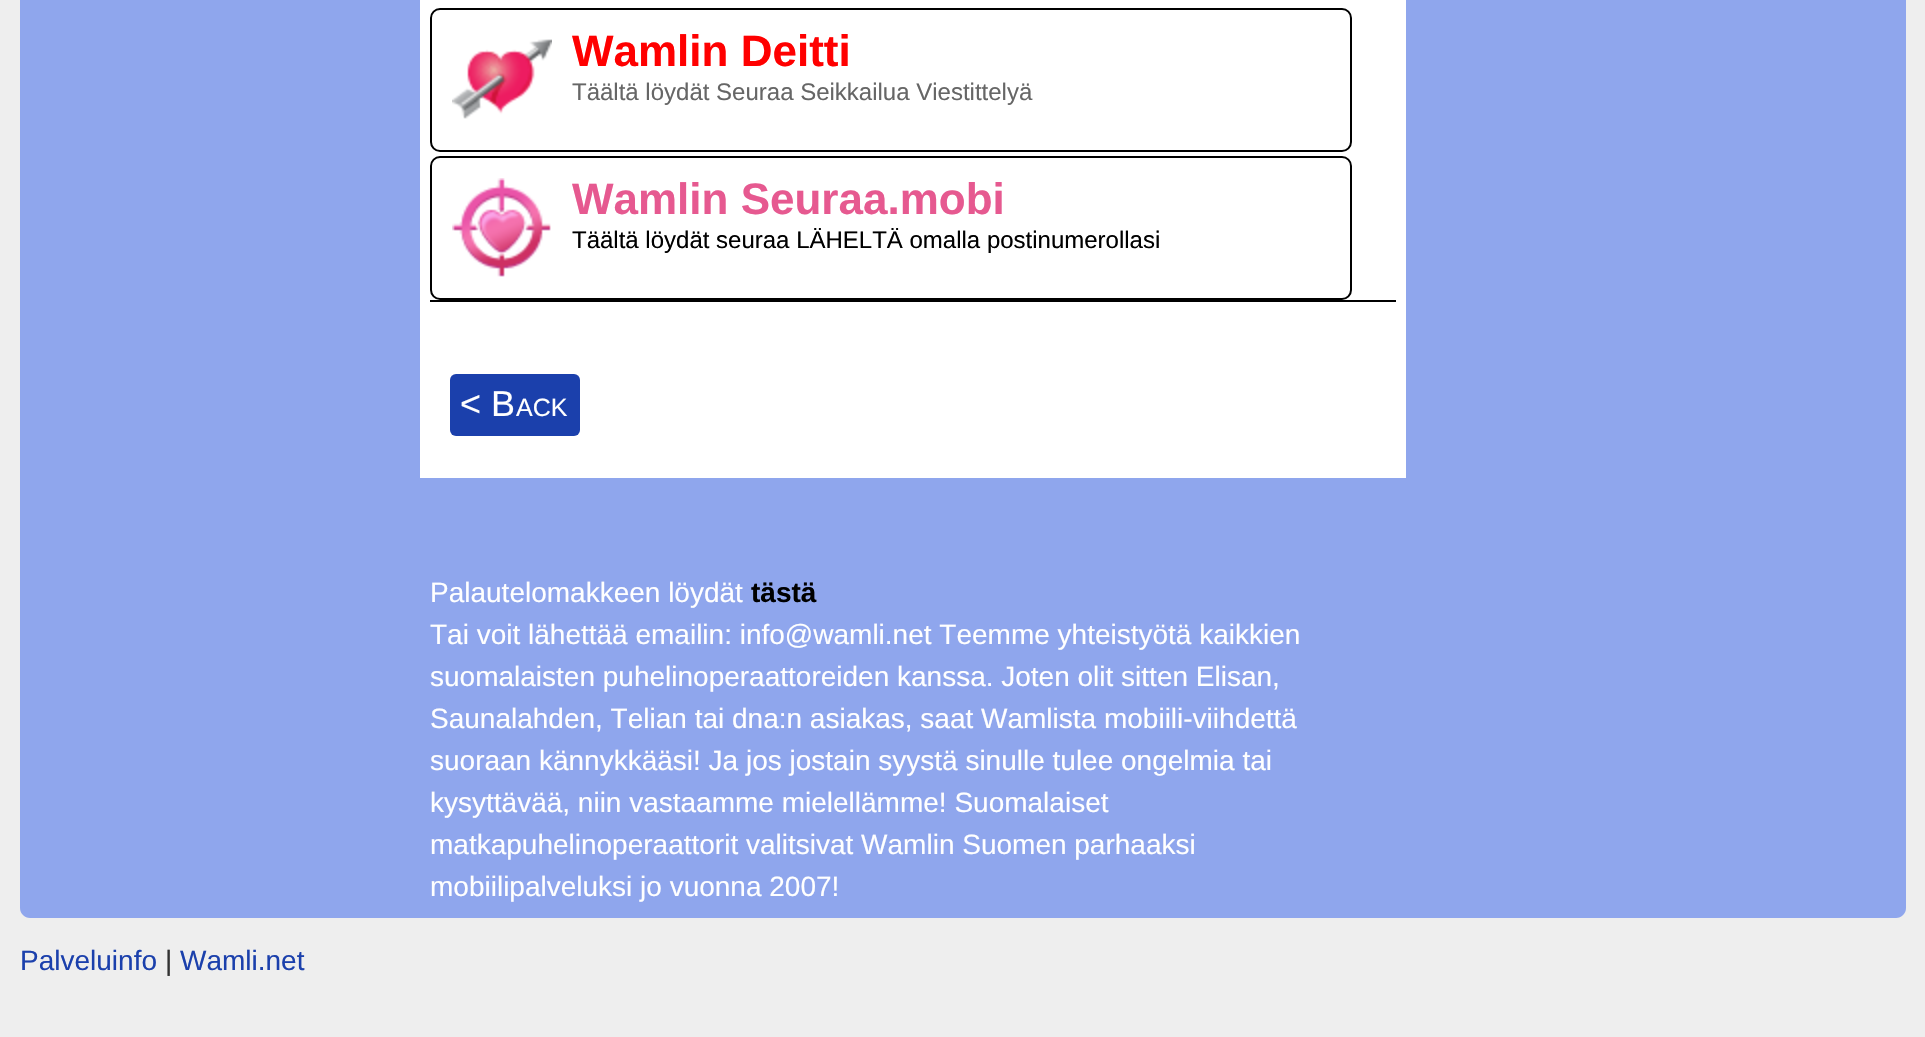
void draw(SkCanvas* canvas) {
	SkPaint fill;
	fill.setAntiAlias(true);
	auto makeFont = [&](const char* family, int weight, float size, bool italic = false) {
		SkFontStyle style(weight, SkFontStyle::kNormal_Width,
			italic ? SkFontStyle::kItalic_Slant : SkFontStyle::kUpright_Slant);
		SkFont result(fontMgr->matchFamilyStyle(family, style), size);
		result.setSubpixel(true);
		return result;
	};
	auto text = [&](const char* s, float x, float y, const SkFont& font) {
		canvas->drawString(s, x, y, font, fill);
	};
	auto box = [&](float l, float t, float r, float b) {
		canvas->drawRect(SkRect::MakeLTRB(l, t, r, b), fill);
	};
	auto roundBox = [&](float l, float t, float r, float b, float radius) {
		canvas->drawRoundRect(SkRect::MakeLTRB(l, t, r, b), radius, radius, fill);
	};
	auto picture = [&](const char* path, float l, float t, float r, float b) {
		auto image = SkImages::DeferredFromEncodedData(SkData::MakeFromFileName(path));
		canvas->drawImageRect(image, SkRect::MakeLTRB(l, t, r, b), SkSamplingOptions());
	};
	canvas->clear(0xFFEEEEEE);
	fill.setColor(0xFF8FA6ED);
	canvas->drawPath(SkPathBuilder().moveTo(20, -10).lineTo(1906, -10).lineTo(1906, 908).cubicTo(1906, 913.5f, 1901.5f, 918, 1896, 918).lineTo(30, 918).cubicTo(24.5f, 918, 20, 913.5f, 20, 908).close().detach(), fill);
	fill.setColor(0xFFFFFFFF);
	box(420, 0, 1406, 478);
	fill.setStyle(SkPaint::kStroke_Style);
	fill.setStrokeWidth(2);
	fill.setColor(0xFF000000);
	canvas->drawRoundRect(SkRect::MakeLTRB(431, 9, 1351, 151), 9, 9, fill);
	picture("image0.png", 452, 39, 552, 119);
	canvas->drawRoundRect(SkRect::MakeLTRB(431, 157, 1351, 299), 9, 9, fill);
	picture("image1.png", 452, 178, 551, 277);
	fill.setStyle(SkPaint::kFill_Style);
	box(430, 300, 1396, 302);
	fill.setColor(0xFF1B40AC);
	roundBox(450, 374, 580, 436, 6);
	auto font1 = makeFont("Liberation Sans", 700, 44);
	fill.setColor(0xFFFF0000);
	text("Wamlin Deitti", 572, 66, font1);
	auto font2 = makeFont("Liberation Sans", 400, 24);
	fill.setColor(0xFF666666);
	text("Täältä löydät Seuraa Seikkailua Viestittelyä", 572, 100, font2);
	fill.setColor(0xFFE65990);
	text("Wamlin Seuraa.mobi", 572, 214, font1);
	fill.setColor(0xFF000000);
	text("Täältä löydät seuraa LÄHELTÄ omalla postinumerollasi", 572, 248, font2);
	auto font3 = makeFont("Liberation Sans", 400, 36);
	fill.setColor(0xFFFFFFFF);
	text("< B", 460, 416, font3);
	auto font4 = makeFont("Liberation Sans", 400, 25);
	text("ACK", 516, 416, font4);
	auto font5 = makeFont("Liberation Sans", 400, 28);
	text("Palautelomakkeen löydät", 430, 602, font5);
	auto font6 = makeFont("Liberation Sans", 700, 28);
	fill.setColor(0xFF000000);
	text("tästä", 751, 602, font6);
	fill.setColor(0xFFFFFFFF);
	text("Tai voit lähettää emailin: info@wamli.net Teemme yhteistyötä kaikkien", 430, 644, font5);
	text("suomalaisten puhelinoperaattoreiden kanssa. Joten olit sitten Elisan,", 430, 686, font5);
	text("Saunalahden, Telian tai dna:n asiakas, saat Wamlista mobiili-viihdettä", 430, 728, font5);
	text("suoraan kännykkääsi! Ja jos jostain syystä sinulle tulee ongelmia tai", 430, 770, font5);
	text("kysyttävää, niin vastaamme mielellämme! Suomalaiset", 430, 812, font5);
	text("matkapuhelinoperaattorit valitsivat Wamlin Suomen parhaaksi", 430, 854, font5);
	text("mobiilipalveluksi jo vuonna 2007!", 430, 896, font5);
	fill.setColor(0xFF1B40AC);
	text("Palveluinfo", 20, 970, font5);
	fill.setColor(0xFF333333);
	text("|", 165, 970, font5);
	fill.setColor(0xFF1B40AC);
	text("Wamli.net", 180, 970, font5);
}
